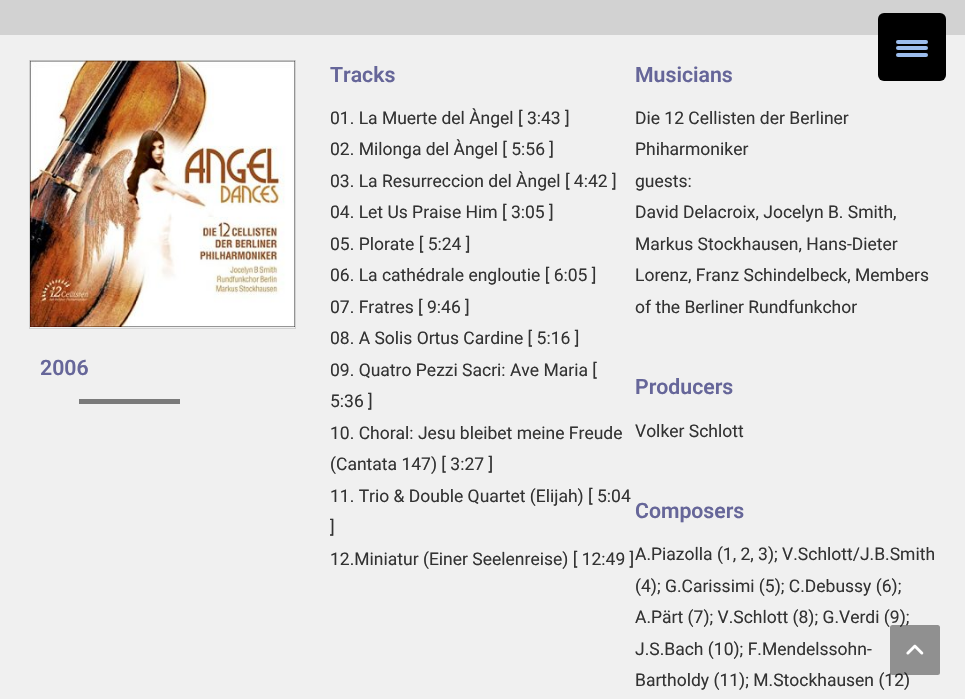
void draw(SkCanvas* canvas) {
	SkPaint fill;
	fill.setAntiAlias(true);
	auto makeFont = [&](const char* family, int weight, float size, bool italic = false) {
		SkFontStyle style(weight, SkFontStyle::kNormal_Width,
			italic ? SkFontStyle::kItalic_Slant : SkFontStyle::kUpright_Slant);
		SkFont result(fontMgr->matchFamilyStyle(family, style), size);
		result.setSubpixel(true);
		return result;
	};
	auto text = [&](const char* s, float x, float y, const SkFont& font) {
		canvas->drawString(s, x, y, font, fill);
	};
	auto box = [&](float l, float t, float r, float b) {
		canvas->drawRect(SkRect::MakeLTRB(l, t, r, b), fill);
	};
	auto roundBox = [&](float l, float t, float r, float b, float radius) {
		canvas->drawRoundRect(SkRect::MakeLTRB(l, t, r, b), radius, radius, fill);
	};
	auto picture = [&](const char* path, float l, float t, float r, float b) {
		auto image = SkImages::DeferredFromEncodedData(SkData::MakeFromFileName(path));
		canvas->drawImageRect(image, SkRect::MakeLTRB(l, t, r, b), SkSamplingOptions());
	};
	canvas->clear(0xFFD2D2D2);
	fill.setColor(0xFFF0F0F0);
	box(0, 35, 965, 699);
	fill.setColor(0xFF000000);
	roundBox(878, 13, 946, 81, 6);
	fill.setColor(0xFF9CBDED);
	roundBox(896, 46, 928, 50, 2);
	roundBox(896, 40, 928, 44, 2);
	roundBox(896, 53, 928, 57, 2);
	fill.setStyle(SkPaint::kStroke_Style);
	fill.setStrokeWidth(1);
	fill.setColor(0xFFD2D2D2);
	canvas->drawRect(SkRect::MakeLTRB(29.5f, 60.5f, 295.5f, 328.5f), fill);
	picture("image0.png", 30, 60, 295, 327);
	fill.setStyle(SkPaint::kFill_Style);
	fill.setColor(0xFF7A7A7A);
	box(79, 399, 180, 404);
	auto font1 = makeFont("Roboto", 600, 21.25f);
	fill.setColor(0xFF666699);
	text("2006", 40, 375, font1);
	text("Tracks", 330, 82, font1);
	auto font2 = makeFont("Roboto", 400, 17.5f);
	fill.setColor(0xFF333333);
	text("01. La Muerte del Àngel [ 3:43 ]", 330, 124, font2);
	text("02. Milonga del Àngel [ 5:56 ]", 330, 155, font2);
	text("03. La Resurreccion del Àngel [ 4:42 ]", 330, 187, font2);
	text("04. Let Us Praise Him [ 3:05 ]", 330, 218, font2);
	text("05. Plorate [ 5:24 ]", 330, 250, font2);
	text("06. La cathédrale engloutie [ 6:05 ]", 330, 281, font2);
	text("07. Fratres [ 9:46 ]", 330, 313, font2);
	text("08. A Solis Ortus Cardine [ 5:16 ]", 330, 344, font2);
	text("09. Quatro Pezzi Sacri: Ave Maria [", 330, 376, font2);
	text("5:36 ]", 330, 407, font2);
	text("10. Choral: Jesu bleibet meine Freude", 330, 439, font2);
	text("(Cantata 147) [ 3:27 ]", 330, 470, font2);
	text("11. Trio & Double Quartet (Elijah) [ 5:04", 330, 502, font2);
	text("]", 330, 533, font2);
	text("12.Miniatur (Einer Seelenreise) [ 12:49 ]", 330, 565, font2);
	fill.setColor(0xFF666699);
	text("Musicians", 635, 82, font1);
	fill.setColor(0xFF333333);
	text("Die 12 Cellisten der Berliner", 635, 124, font2);
	text("Phiharmoniker", 635, 155, font2);
	text("guests:", 635, 187, font2);
	text("David Delacroix, Jocelyn B. Smith,", 635, 218, font2);
	text("Markus Stockhausen, Hans-Dieter", 635, 250, font2);
	text("Lorenz, Franz Schindelbeck, Members", 635, 281, font2);
	text("of the Berliner Rundfunkchor", 635, 313, font2);
	fill.setColor(0xFF666699);
	text("Producers", 635, 394, font1);
	fill.setColor(0xFF333333);
	text("Volker Schlott", 635, 437, font2);
	fill.setColor(0xFF666699);
	text("Composers", 635, 518, font1);
	fill.setColor(0xFF333333);
	text("A.Piazolla (1, 2, 3); V.Schlott/J.B.Smith", 635, 560, font2);
	text("(4); G.Carissimi (5); C.Debussy (6);", 635, 592, font2);
	text("A.Pärt (7); V.Schlott (8); G.Verdi (9);", 635, 623, font2);
	text("J.S.Bach (10); F.Mendelssohn-", 635, 655, font2);
	text("Bartholdy (11); M.Stockhausen (12)", 635, 686, font2);
	fill.setColor(0x66000000);
	roundBox(890, 625, 940, 675, 2.5f);
	picture("image1.png", 906, 644, 924, 655);
}
